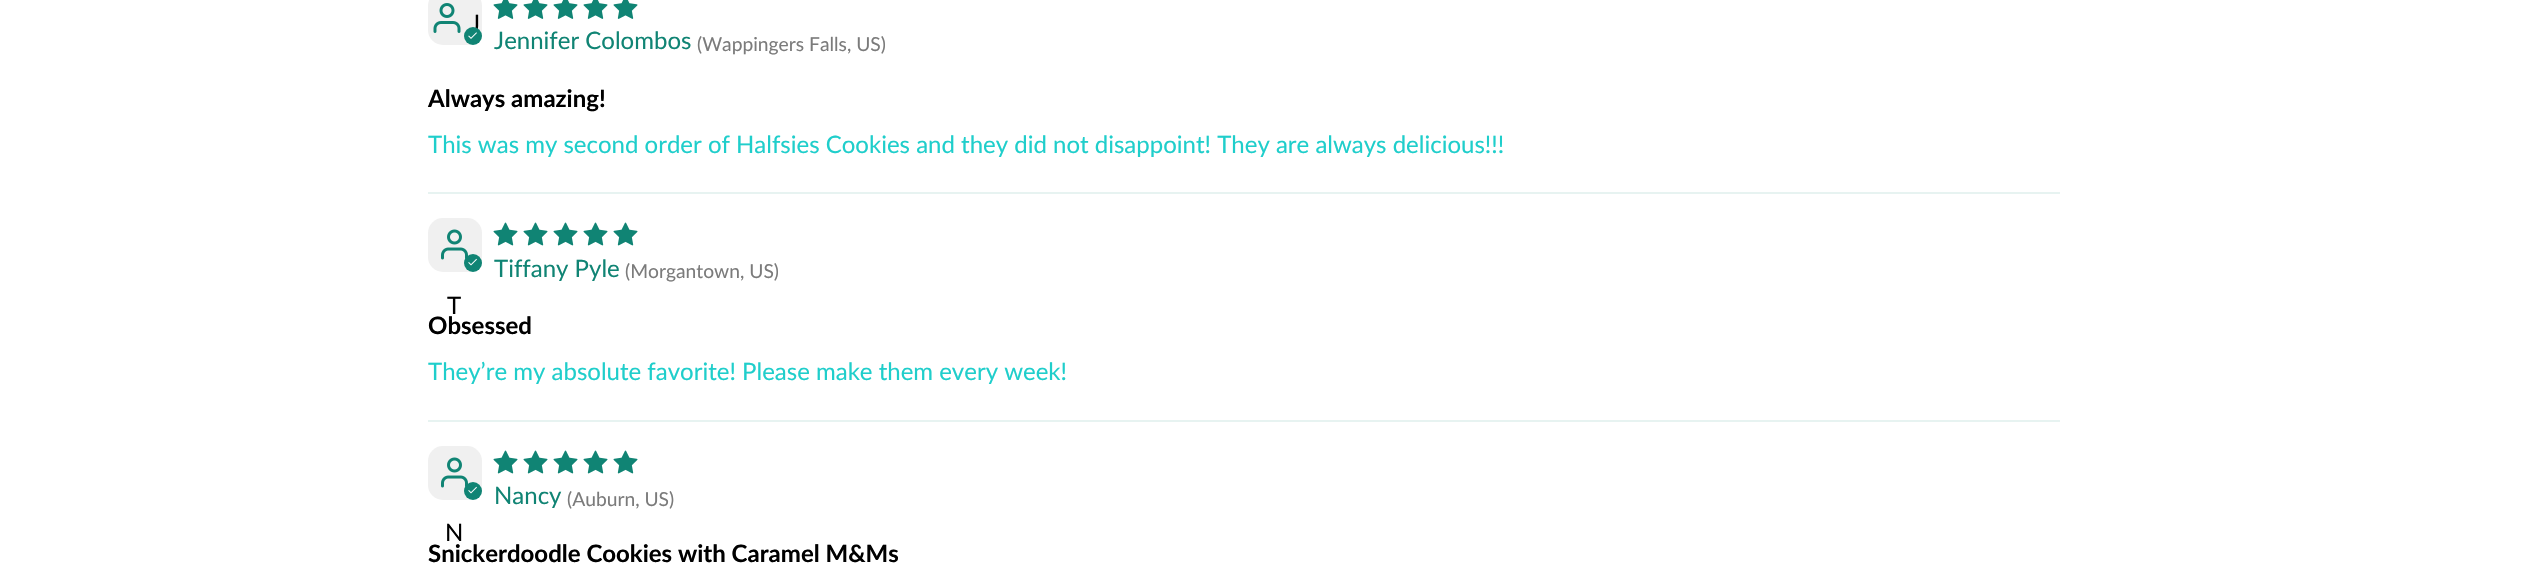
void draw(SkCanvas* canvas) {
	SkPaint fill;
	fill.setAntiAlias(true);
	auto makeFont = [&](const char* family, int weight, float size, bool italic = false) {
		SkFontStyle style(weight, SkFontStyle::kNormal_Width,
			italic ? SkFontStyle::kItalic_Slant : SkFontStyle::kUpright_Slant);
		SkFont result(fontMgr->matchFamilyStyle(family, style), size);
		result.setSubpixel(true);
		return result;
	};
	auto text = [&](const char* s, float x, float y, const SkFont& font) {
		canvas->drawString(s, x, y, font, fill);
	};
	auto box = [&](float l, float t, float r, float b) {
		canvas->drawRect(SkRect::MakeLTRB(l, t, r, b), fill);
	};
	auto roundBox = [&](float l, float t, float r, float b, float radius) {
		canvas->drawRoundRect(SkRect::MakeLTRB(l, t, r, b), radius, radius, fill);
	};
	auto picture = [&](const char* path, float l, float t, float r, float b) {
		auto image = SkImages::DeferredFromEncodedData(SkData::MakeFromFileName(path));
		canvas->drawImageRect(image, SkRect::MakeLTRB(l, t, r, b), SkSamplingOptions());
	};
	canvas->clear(0xFFFFFFFF);
	picture("image0.png", 493, 0, 518, 19);
	picture("image0.png", 523, 0, 548, 19);
	picture("image0.png", 553, 0, 578, 19);
	picture("image0.png", 583, 0, 608, 19);
	picture("image0.png", 613, 0, 638, 19);
	fill.setColor(0xFFF0F0F0);
	roundBox(428, -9, 482, 45, 15);
	picture("image1.png", 433, 3, 461, 33);
	fill.setColor(0xFFE7F3F1);
	box(428, 192, 2060, 194);
	picture("image3.png", 493, 222, 518, 246);
	picture("image3.png", 523, 222, 548, 246);
	picture("image3.png", 553, 222, 578, 246);
	picture("image3.png", 583, 222, 608, 246);
	picture("image3.png", 613, 222, 638, 246);
	fill.setColor(0xFFF0F0F0);
	roundBox(428, 218, 482, 272, 15);
	picture("image4.png", 441, 229, 468, 260);
	fill.setColor(0xFF108474);
	canvas->drawCircle(473, 263, 9, fill);
	picture("image5.png", 468, 258, 477, 266);
	fill.setColor(0xFFE7F3F1);
	box(428, 420, 2060, 422);
	picture("image3.png", 493, 450, 518, 474);
	picture("image3.png", 523, 450, 548, 474);
	picture("image3.png", 553, 450, 578, 474);
	picture("image3.png", 583, 450, 608, 474);
	picture("image3.png", 613, 450, 638, 474);
	fill.setColor(0xFFF0F0F0);
	roundBox(428, 446, 482, 500, 15);
	picture("image4.png", 441, 457, 468, 488);
	fill.setColor(0xFF108474);
	canvas->drawCircle(473, 491, 9, fill);
	picture("image5.png", 468, 486, 477, 494);
	auto font1 = makeFont("Lato", 400, 24);
	fill.setColor(0xFF000000);
	text("J", 470, 32, font1);
	fill.setColor(0xFF108474);
	canvas->drawCircle(473, 36, 9, fill);
	picture("image2.png", 468, 32, 477, 39);
	text("Jennifer Colombos", 494, 49, font1);
	auto font2 = makeFont("Lato", 400, 19.25f);
	fill.setColor(0xFF7B7B7B);
	text("(Wappingers Falls, US)", 697, 51, font2);
	auto font3 = makeFont("Lato", 700, 24);
	fill.setColor(0xFF000000);
	text("Always amazing!", 428, 107, font3);
	fill.setColor(0xFF1FCECB);
	text("This was my second order of Halfsies Cookies and they did not disappoint! They are always delicious!!!", 428, 153, font1);
	fill.setColor(0xFF108474);
	text("Tiffany Pyle", 494, 277, font1);
	fill.setColor(0xFF7B7B7B);
	text("(Morgantown, US)", 625, 278, font2);
	fill.setColor(0xFF000000);
	text("T", 447, 314, font1);
	text("Obsessed", 428, 334, font3);
	fill.setColor(0xFF1FCECB);
	text("They’re my absolute favorite! Please make them every week!", 428, 380, font1);
	fill.setColor(0xFF108474);
	text("Nancy", 494, 504, font1);
	fill.setColor(0xFF7B7B7B);
	text("(Auburn, US)", 567, 506, font2);
	fill.setColor(0xFF000000);
	text("N", 445, 541, font1);
	text("Snickerdoodle Cookies with Caramel M&Ms", 428, 562, font3);
}
